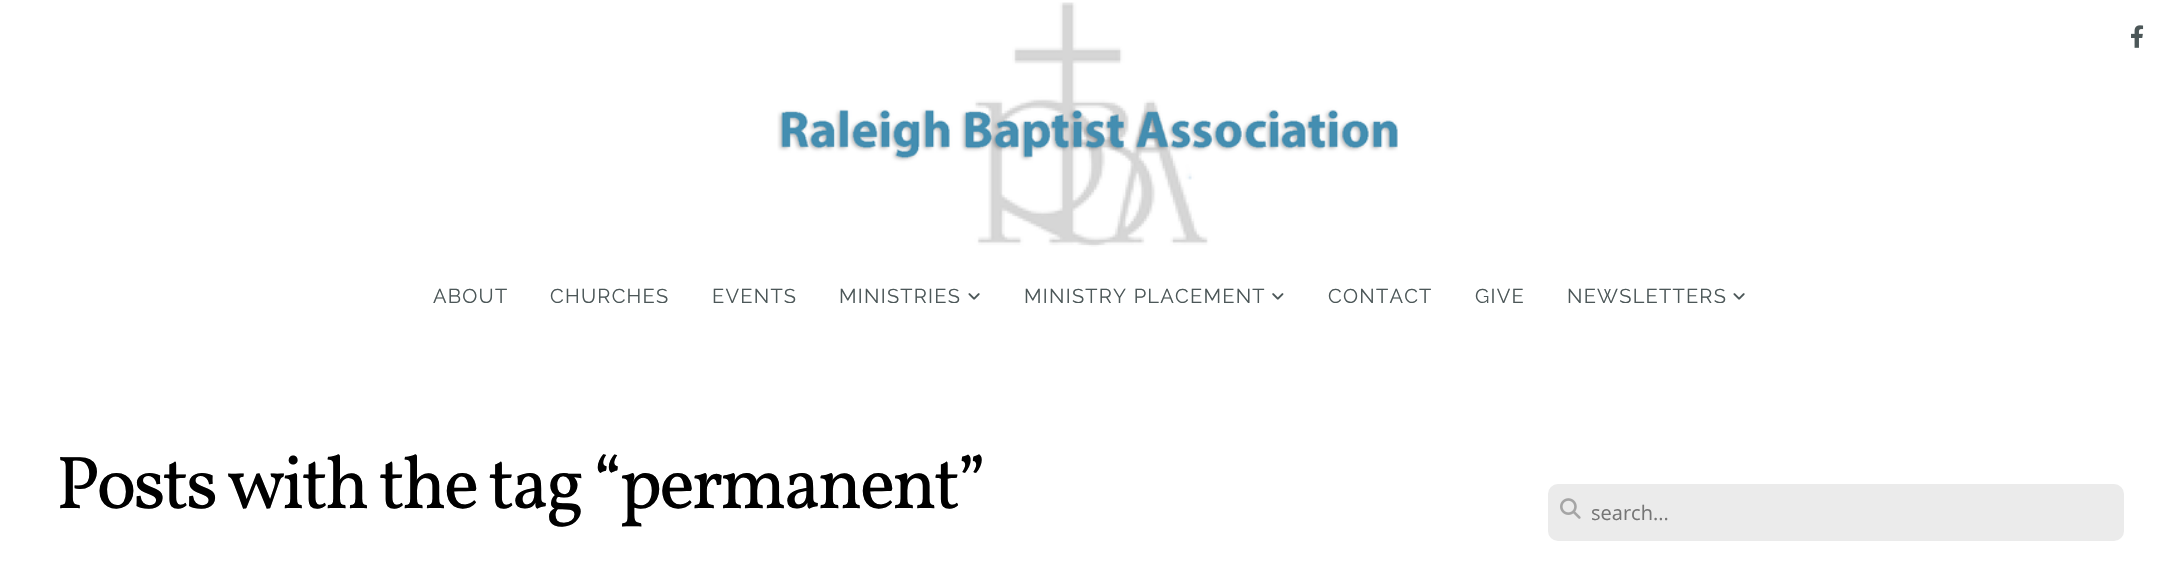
void draw(SkCanvas* canvas) {
	SkPaint fill;
	fill.setAntiAlias(true);
	auto makeFont = [&](const char* family, int weight, float size, bool italic = false) {
		SkFontStyle style(weight, SkFontStyle::kNormal_Width,
			italic ? SkFontStyle::kItalic_Slant : SkFontStyle::kUpright_Slant);
		SkFont result(fontMgr->matchFamilyStyle(family, style), size);
		result.setSubpixel(true);
		return result;
	};
	auto text = [&](const char* s, float x, float y, const SkFont& font) {
		canvas->drawString(s, x, y, font, fill);
	};
	auto spacedText = [&](const char* s, float x, float y, const SkFont& font, const SkPaint& ink, float letter, float word) {
		std::vector<SkGlyphID> glyphs(font.countText(s, strlen(s), SkTextEncoding::kUTF8));
		std::vector<float> xs(glyphs.size());
		font.textToGlyphs(s, strlen(s), SkTextEncoding::kUTF8, glyphs);
		font.getXPos(glyphs, xs, x);
		float extra = 0;
		for (size_t i = 0; i < glyphs.size(); i++) {
			xs[i] += extra;
			extra += letter + word * (glyphs[i] == font.unicharToGlyph(' '));
		}
		canvas->drawTextBlob(SkTextBlob::MakeFromPosHGlyphs(glyphs, xs, y, font), 0, 0, ink);
	};
	auto roundBox = [&](float l, float t, float r, float b, float radius) {
		canvas->drawRoundRect(SkRect::MakeLTRB(l, t, r, b), radius, radius, fill);
	};
	auto picture = [&](const char* path, float l, float t, float r, float b) {
		auto image = SkImages::DeferredFromEncodedData(SkData::MakeFromFileName(path));
		canvas->drawImageRect(image, SkRect::MakeLTRB(l, t, r, b), SkSamplingOptions());
	};
	canvas->clear(0xFFFFFFFF);
	picture("image0.png", 777, 2, 1398, 247);
	picture("image1.png", 2131, 25, 2144, 48);
	picture("image2.png", 968, 293, 980, 300);
	picture("image3.png", 1272, 293, 1284, 300);
	picture("image2.png", 1733, 293, 1745, 300);
	fill.setColor(0xFFEBEBEB);
	roundBox(1548, 484, 2124, 541, 10);
	picture("image4.png", 1560, 498, 1581, 519);
	auto font1 = makeFont("Raleway", 400, 20);
	fill.setColor(0xFF4C5758);
	spacedText("ABOUT", 433, 303, font1, fill, 1.25f, 0);
	spacedText("CHURCHES", 550, 303, font1, fill, 1.25f, 0);
	spacedText("EVENTS", 712, 303, font1, fill, 1.25f, 0);
	spacedText("MINISTRIES", 839, 303, font1, fill, 1.25f, 0);
	spacedText("MINISTRY PLACEMENT", 1024, 303, font1, fill, 1.25f, 0);
	spacedText("CONTACT", 1328, 303, font1, fill, 1.25f, 0);
	spacedText("GIVE", 1475, 303, font1, fill, 1.25f, 0);
	spacedText("NEWSLETTERS", 1567, 303, font1, fill, 1.25f, 0);
	auto font2 = makeFont("Vollkorn", 400, 75);
	fill.setColor(0xFF000000);
	spacedText("Posts with the tag “permanent”", 56, 508, font2, fill, -3, 0);
	auto font3 = makeFont("Open Sans", 400, 20);
	fill.setColor(0xFF767676);
	text("search...", 1591, 520, font3);
}
